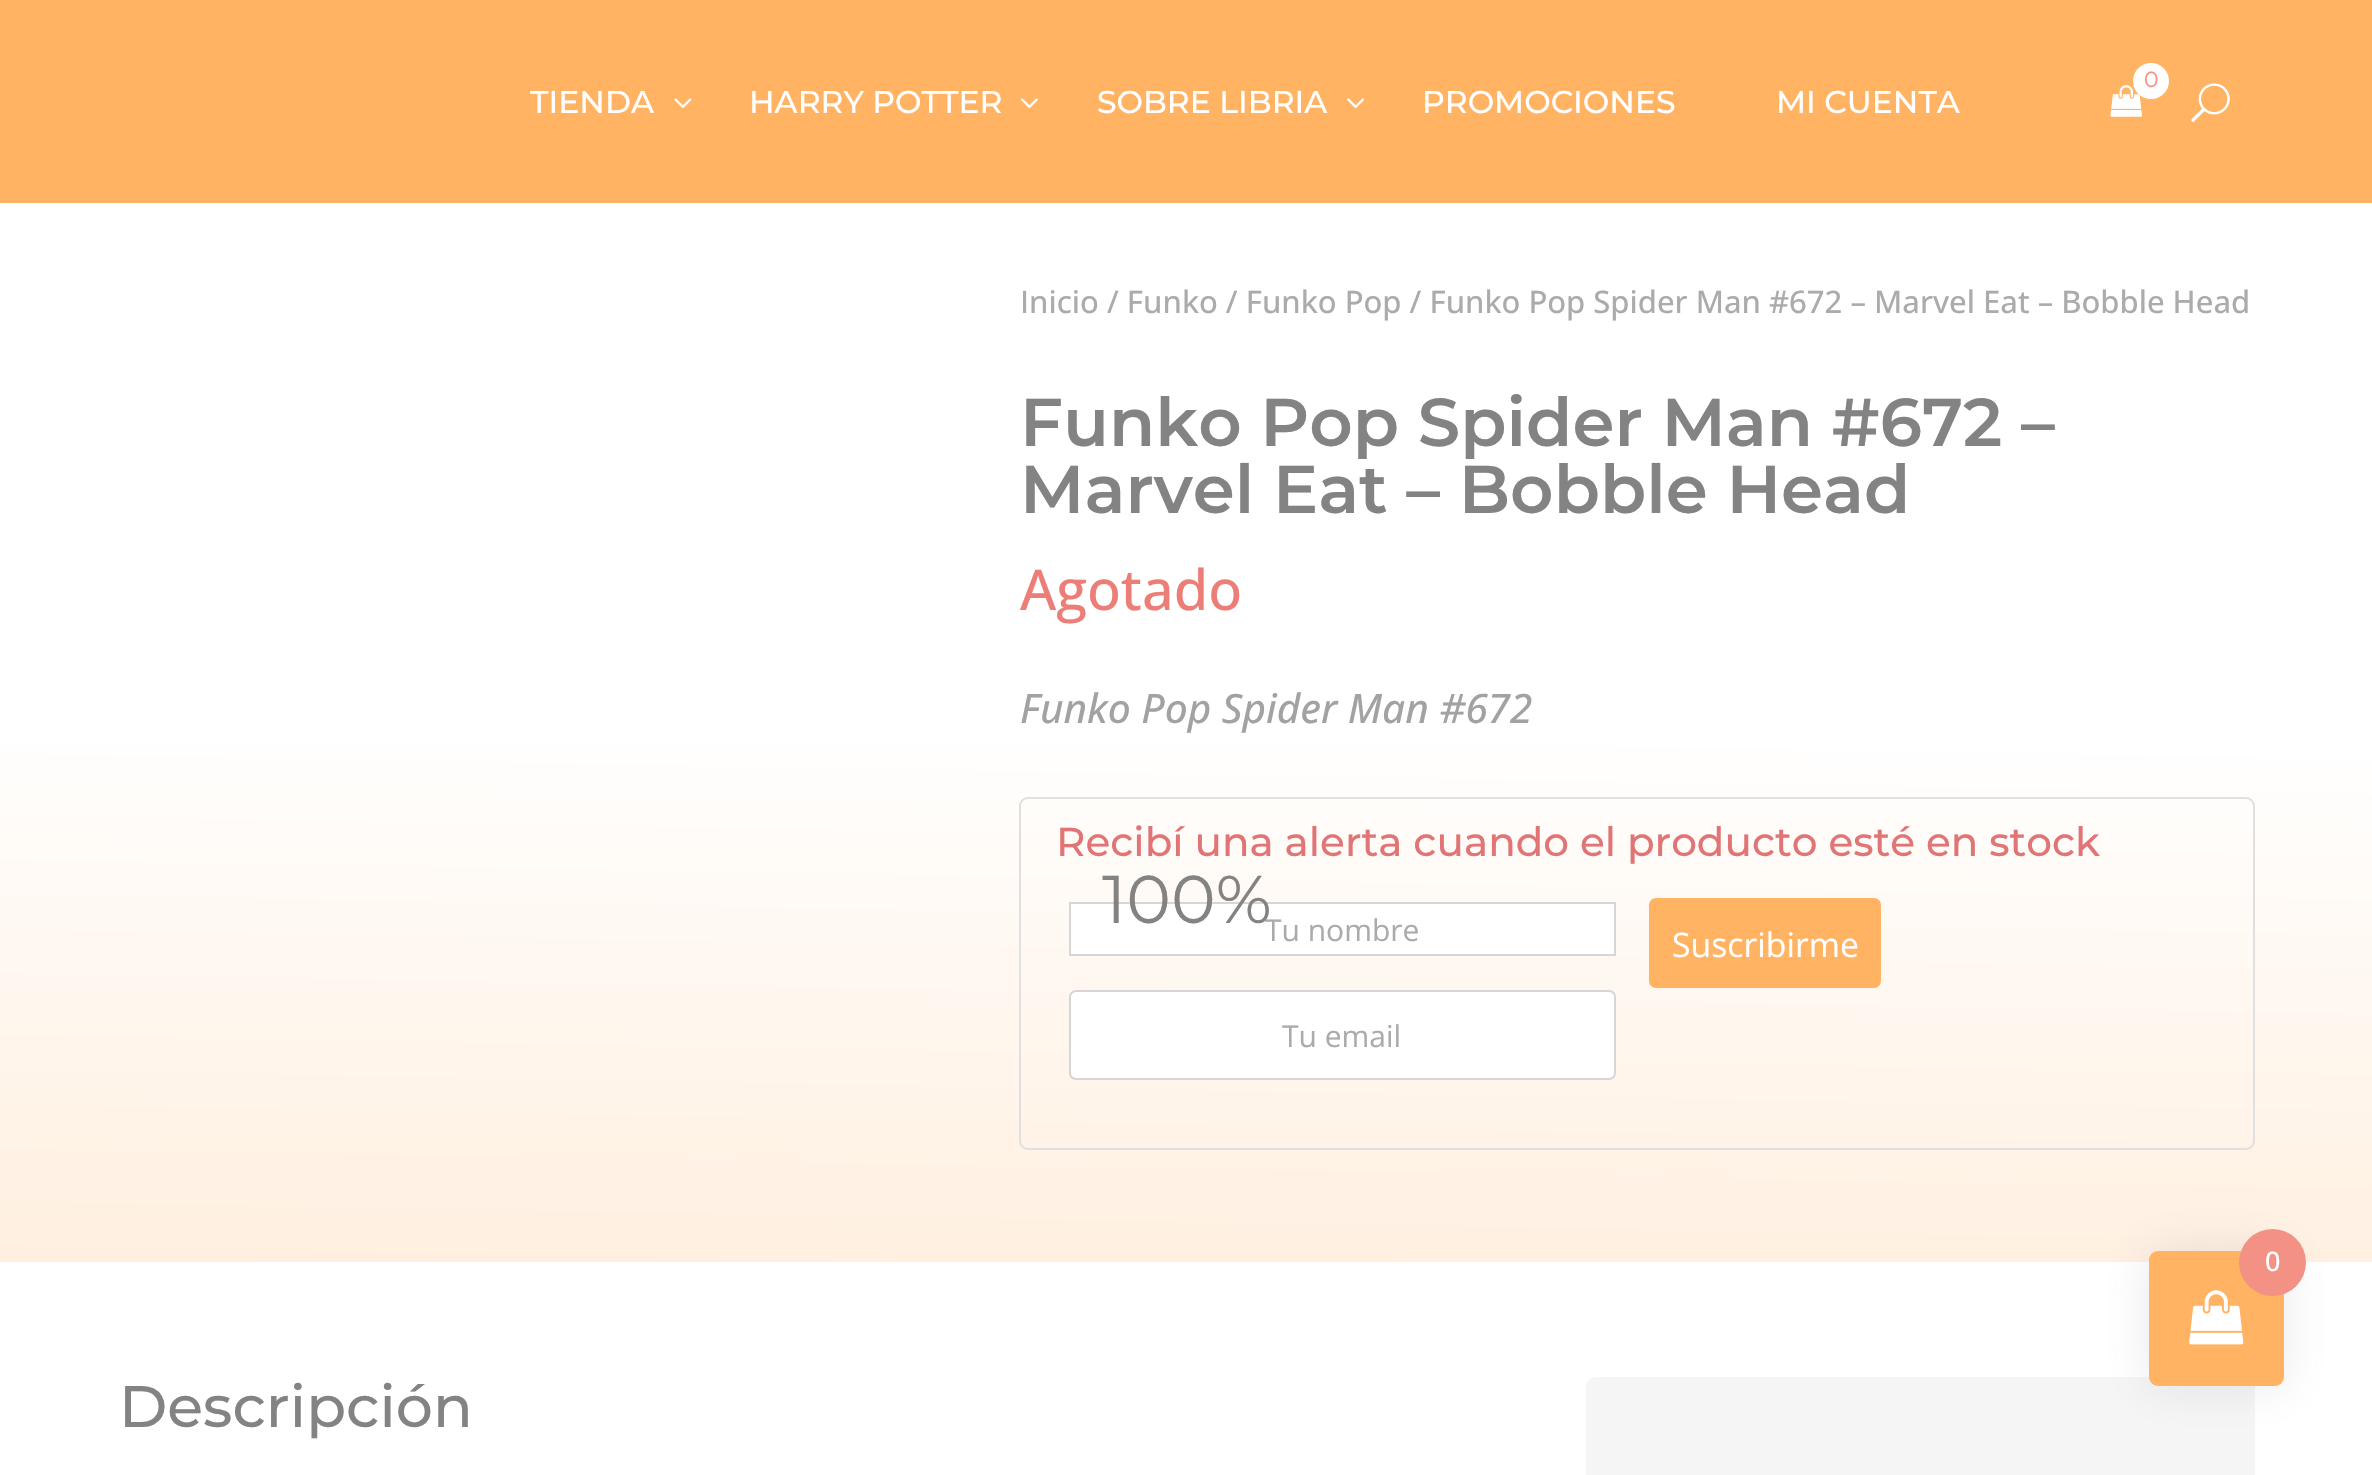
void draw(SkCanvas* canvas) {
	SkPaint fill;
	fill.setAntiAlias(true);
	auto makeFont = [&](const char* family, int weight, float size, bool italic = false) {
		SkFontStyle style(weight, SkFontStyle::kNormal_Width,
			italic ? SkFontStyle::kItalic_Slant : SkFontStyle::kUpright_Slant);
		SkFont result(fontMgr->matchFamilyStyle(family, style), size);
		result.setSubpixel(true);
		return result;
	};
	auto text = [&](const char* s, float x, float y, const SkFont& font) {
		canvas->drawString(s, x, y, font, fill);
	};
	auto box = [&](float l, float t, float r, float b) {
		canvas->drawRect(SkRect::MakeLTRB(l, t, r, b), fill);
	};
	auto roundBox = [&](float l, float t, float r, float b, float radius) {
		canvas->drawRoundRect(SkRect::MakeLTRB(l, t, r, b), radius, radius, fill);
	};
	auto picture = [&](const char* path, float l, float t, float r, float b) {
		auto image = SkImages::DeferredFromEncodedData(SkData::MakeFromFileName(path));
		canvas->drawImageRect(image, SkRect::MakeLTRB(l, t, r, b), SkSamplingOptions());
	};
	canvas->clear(0xFFFFFFFF);
	fill.setColor(0xFFFFB363);
	box(0, 0, 2372, 203);
	picture("image0.png", 2110, 85, 2142, 117);
	fill.setColor(0xFFFFFFFF);
	canvas->drawCircle(2151, 81, 18, fill);
	picture("image1.png", 674, 98, 692, 108);
	picture("image2.png", 1021, 98, 1038, 108);
	picture("image3.png", 1347, 98, 1364, 108);
	picture("image4.png", 2191, 83, 2230, 122);
	{
		const SkColor colors[] = {0xFFFFEFDF, 0xFFFFFFFF};
		const float stops[] = {0, 0.51f};
		const SkPoint ends[] = {{1177, 1283}, {1196, 182}};
		fill.setShader(SkGradientShader::MakeLinear(ends, colors, stops, 2, SkTileMode::kClamp));
		fill.setAlpha(255);
	}
	box(0, 745, 2372, 1262);
	fill.setStyle(SkPaint::kStroke_Style);
	fill.setStrokeWidth(2);
	fill.setShader(nullptr);
	fill.setColor(0xFFE0E0E0);
	canvas->drawRoundRect(SkRect::MakeLTRB(1020, 798, 2254, 1149), 8, 8, fill);
	fill.setStyle(SkPaint::kFill_Style);
	fill.setColor(0xFFFFFFFF);
	canvas->drawRect(SkRect::MakeLTRB(1070, 903, 1615, 955), fill);
	fill.setStyle(SkPaint::kStroke_Style);
	fill.setColor(0xFFD6D6D6);
	canvas->drawRect(SkRect::MakeLTRB(1070, 903, 1615, 955), fill);
	fill.setStyle(SkPaint::kFill_Style);
	fill.setColor(0xFFFFFFFF);
	canvas->drawRoundRect(SkRect::MakeLTRB(1070, 991, 1615, 1079), 6, 6, fill);
	fill.setStyle(SkPaint::kStroke_Style);
	fill.setColor(0xFFD6D6D6);
	canvas->drawRoundRect(SkRect::MakeLTRB(1070, 991, 1615, 1079), 6, 6, fill);
	fill.setStyle(SkPaint::kFill_Style);
	fill.setColor(0xFFFFB363);
	roundBox(1649, 898, 1881, 988, 7);
	fill.setColor(0xFFF5F5F5);
	roundBox(1586, 1377, 2255, 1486, 11);
	fill.setColor(0x26636363);
	fill.setMaskFilter(SkMaskFilter::MakeBlur(kNormal_SkBlurStyle, 22.5f));
	canvas->drawRoundRect(SkRect::MakeLTRB(2149, 1251, 2284, 1386), 9, 9, fill);
	fill.setMaskFilter(nullptr);
	fill.setColor(0xFFFFB363);
	roundBox(2149, 1251, 2284, 1386, 9);
	picture("image5.png", 2189, 1290, 2244, 1345);
	fill.setColor(0xFFF29184);
	canvas->drawCircle(2272.5f, 1262.5f, 33.5f, fill);
	auto font1 = makeFont("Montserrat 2", 100, 22);
	text("0", 2144, 87, font1);
	auto font2 = makeFont("Montserrat", 100, 31.5f);
	fill.setColor(0xFFFFFFFF);
	text("TIENDA", 530, 113, font2);
	text("HARRY POTTER", 749, 113, font2);
	text("SOBRE LIBRIA", 1097, 113, font2);
	text("PROMOCIONES", 1422, 113, font2);
	text("MI CUENTA", 1776, 113, font2);
	auto font3 = makeFont("Open Sans", 500, 31.05f);
	fill.setColor(0xFFABABAB);
	text("Inicio / Funko / Funko Pop / Funko Pop Spider Man #672 – Marvel Eat – Bobble Head", 1020, 313, font3);
	auto font4 = makeFont("Montserrat", 600, 67.5f);
	fill.setColor(0xFF838383);
	text("Funko Pop Spider Man #672 –", 1020, 446, font4);
	text("Marvel Eat – Bobble Head", 1020, 513, font4);
	auto font5 = makeFont("Open Sans", 500, 56);
	fill.setColor(0xFFEC7E77);
	text("Agotado", 1020, 610, font5);
	auto font6 = makeFont("Open Sans", 500, 40.5f, true);
	fill.setColor(0xFFA2A2A2);
	text("Funko Pop Spider Man #672", 1020, 723, font6);
	auto font7 = makeFont("Montserrat", 100, 40.5f);
	fill.setColor(0xFFE17576);
	text("Recibí una alerta cuando el producto esté en stock", 1056, 856, font7);
	auto font8 = makeFont("Open Sans", 400, 30);
	fill.setColor(0xFFABABAB);
	text("Tu nombre", 1265, 941, font8);
	text("Tu email", 1282, 1047, font8);
	auto font9 = makeFont("Open Sans", 400, 33.75f);
	fill.setColor(0xFFFFFFFF);
	text("Suscribirme", 1672, 957, font9);
	auto font10 = makeFont("Montserrat", 100, 58.5f);
	fill.setColor(0xFF838383);
	text("Descripción", 119, 1427, font10);
	auto font11 = makeFont("Open Sans", 500, 27);
	fill.setColor(0xFFFFFFFF);
	text("0", 2265, 1271, font11);
	auto font12 = makeFont("Montserrat 2", 100, 67.5f);
	fill.setColor(0xFF838383);
	text("100%", 1102, 923, font12);
}
